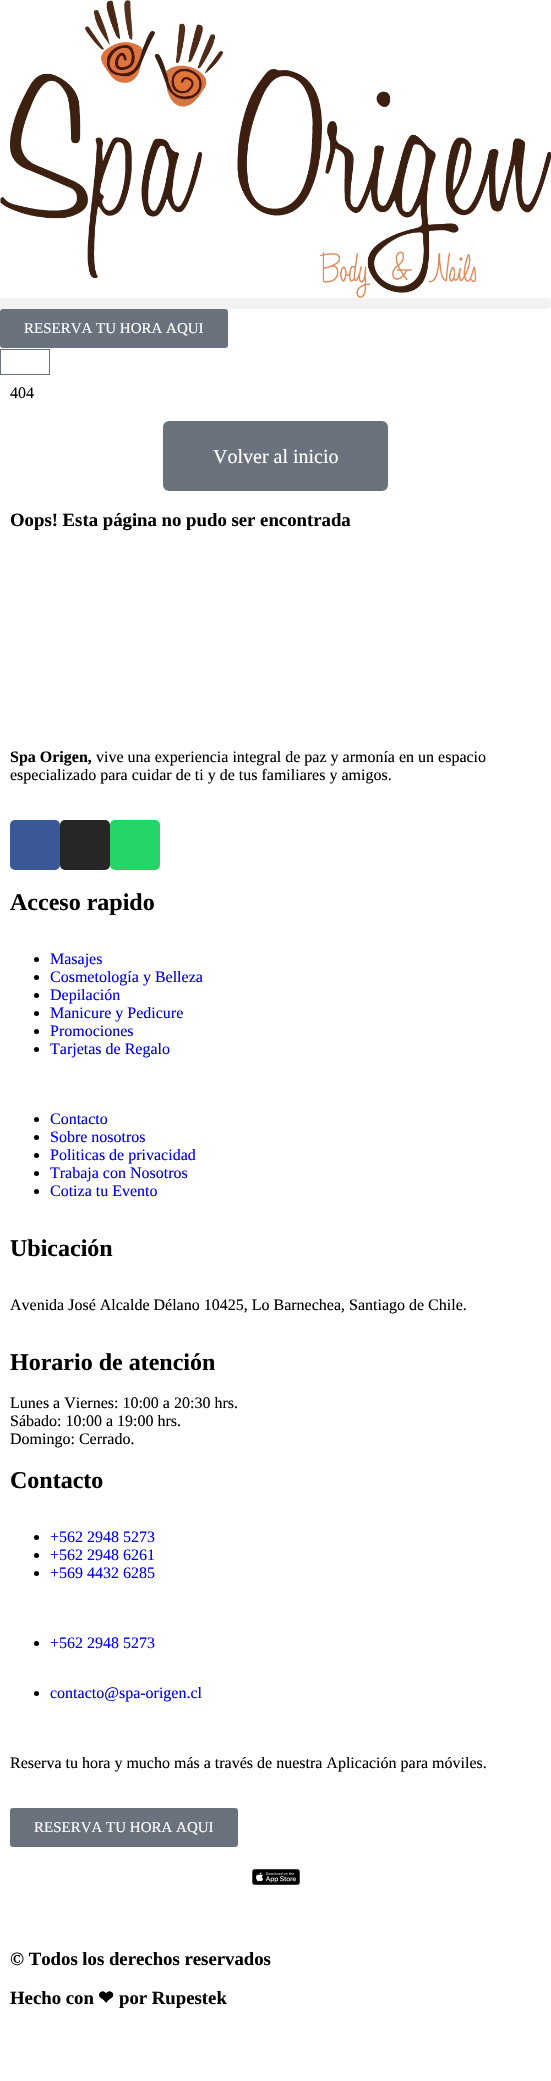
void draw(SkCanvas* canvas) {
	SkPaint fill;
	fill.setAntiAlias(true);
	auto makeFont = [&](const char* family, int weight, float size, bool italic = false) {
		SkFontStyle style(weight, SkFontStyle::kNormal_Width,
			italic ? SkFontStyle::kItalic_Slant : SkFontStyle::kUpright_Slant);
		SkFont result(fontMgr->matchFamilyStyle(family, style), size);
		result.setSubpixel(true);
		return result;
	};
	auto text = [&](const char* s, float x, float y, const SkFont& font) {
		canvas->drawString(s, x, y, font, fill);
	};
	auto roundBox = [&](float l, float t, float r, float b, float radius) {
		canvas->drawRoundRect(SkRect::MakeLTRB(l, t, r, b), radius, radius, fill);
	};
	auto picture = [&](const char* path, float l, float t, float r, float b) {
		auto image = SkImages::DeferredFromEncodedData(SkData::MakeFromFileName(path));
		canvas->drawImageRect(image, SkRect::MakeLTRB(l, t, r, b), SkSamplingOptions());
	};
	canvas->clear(0xFFFFFFFF);
	picture("image0.png", 0, 0, 551, 298);
	fill.setColor(0xFFF2F2F2);
	roundBox(0, 298, 551, 309, 3);
	fill.setColor(0xFF69727D);
	roundBox(0, 309, 228, 348, 3);
	fill.setStyle(SkPaint::kStroke_Style);
	fill.setStrokeWidth(1);
	canvas->drawRect(SkRect::MakeLTRB(0.5f, 349.5f, 49.5f, 374.5f), fill);
	fill.setStyle(SkPaint::kFill_Style);
	roundBox(163, 421, 388, 491, 6);
	fill.setColor(0xFF3B5998);
	roundBox(10, 820, 60, 870, 5);
	fill.setColor(0xFF262626);
	roundBox(60, 820, 110, 870, 5);
	fill.setColor(0xFF25D366);
	roundBox(110, 820, 160, 870, 5);
	fill.setColor(0xFF000000);
	canvas->drawCircle(36.5f, 959.5f, 2.5f, fill);
	canvas->drawCircle(36.5f, 977.5f, 2.5f, fill);
	canvas->drawCircle(36.5f, 995.5f, 2.5f, fill);
	canvas->drawCircle(36.5f, 1013.5f, 2.5f, fill);
	canvas->drawCircle(36.5f, 1031.5f, 2.5f, fill);
	canvas->drawCircle(36.5f, 1049.5f, 2.5f, fill);
	canvas->drawCircle(36.5f, 1119.5f, 2.5f, fill);
	canvas->drawCircle(36.5f, 1137.5f, 2.5f, fill);
	canvas->drawCircle(36.5f, 1155.5f, 2.5f, fill);
	canvas->drawCircle(36.5f, 1173.5f, 2.5f, fill);
	canvas->drawCircle(36.5f, 1191.5f, 2.5f, fill);
	canvas->drawCircle(36.5f, 1537.5f, 2.5f, fill);
	canvas->drawCircle(36.5f, 1555.5f, 2.5f, fill);
	canvas->drawCircle(36.5f, 1573.5f, 2.5f, fill);
	canvas->drawCircle(36.5f, 1643.5f, 2.5f, fill);
	canvas->drawCircle(36.5f, 1693.5f, 2.5f, fill);
	fill.setColor(0xFF69727D);
	roundBox(10, 1808, 238, 1847, 3);
	picture("image1.png", 252, 1869, 300, 1885);
	auto font1 = makeFont("Liberation Serif", 400, 15);
	fill.setColor(0xFFFFFFFF);
	text("RESERVA TU HORA AQUI", 24, 333, font1);
	auto font2 = makeFont("Liberation Serif", 400, 16);
	fill.setColor(0xFF000000);
	text("404", 10, 398, font2);
	auto font3 = makeFont("Liberation Serif", 400, 20);
	fill.setColor(0xFFFFFFFF);
	text("Volver al inicio", 213, 463, font3);
	auto font4 = makeFont("Liberation Serif", 700, 18.75f);
	fill.setColor(0xFF000000);
	text("Oops! Esta página no pudo ser encontrada", 10, 526, font4);
	auto font5 = makeFont("Liberation Serif", 700, 16);
	text("Spa Origen,", 10, 762, font5);
	text("vive una experiencia integral de paz y armonía en un espacio", 96, 762, font2);
	text("especializado para cuidar de ti y de tus familiares y amigos.", 10, 780, font2);
	auto font6 = makeFont("Liberation Serif", 700, 24);
	text("Acceso rapido", 10, 910, font6);
	fill.setColor(0xFF0000EE);
	text("Masajes", 50, 964, font2);
	text("Cosmetología y Belleza", 50, 982, font2);
	text("Depilación", 50, 1000, font2);
	text("Manicure y Pedicure", 50, 1018, font2);
	text("Promociones", 50, 1036, font2);
	text("Tarjetas de Regalo", 50, 1054, font2);
	text("Contacto", 50, 1124, font2);
	text("Sobre nosotros", 50, 1142, font2);
	text("Politicas de privacidad", 50, 1160, font2);
	text("Trabaja con Nosotros", 50, 1178, font2);
	text("Cotiza tu Evento", 50, 1196, font2);
	fill.setColor(0xFF000000);
	text("Ubicación", 10, 1256, font6);
	text("Avenida José Alcalde Délano 10425, Lo Barnechea, Santiago de Chile.", 10, 1310, font2);
	text("Horario de atención", 10, 1370, font6);
	text("Lunes a Viernes: 10:00 a 20:30 hrs.", 10, 1408, font2);
	text("Sábado: 10:00 a 19:00 hrs.", 10, 1426, font2);
	text("Domingo: Cerrado.", 10, 1444, font2);
	text("Contacto", 10, 1488, font6);
	fill.setColor(0xFF0000EE);
	text("+562 2948 5273", 50, 1542, font2);
	text("+562 2948 6261", 50, 1560, font2);
	text("+569 4432 6285", 50, 1578, font2);
	text("+562 2948 5273", 50, 1648, font2);
	text("contacto@spa-origen.cl", 50, 1698, font2);
	fill.setColor(0xFF000000);
	text("Reserva tu hora y mucho más a través de nuestra Aplicación para móviles.", 10, 1768, font2);
	fill.setColor(0xFFFFFFFF);
	text("RESERVA TU HORA AQUI", 34, 1832, font1);
	fill.setColor(0xFF000000);
	text("© Todos los derechos reservados", 10, 1965, font4);
	text("Hecho con", 10, 2004, font4);
	auto font7 = makeFont("DejaVu Sans", 700, 18.75f);
	text("❤", 98, 2004, font7);
	text("por Rupestek", 119, 2004, font4);
}
